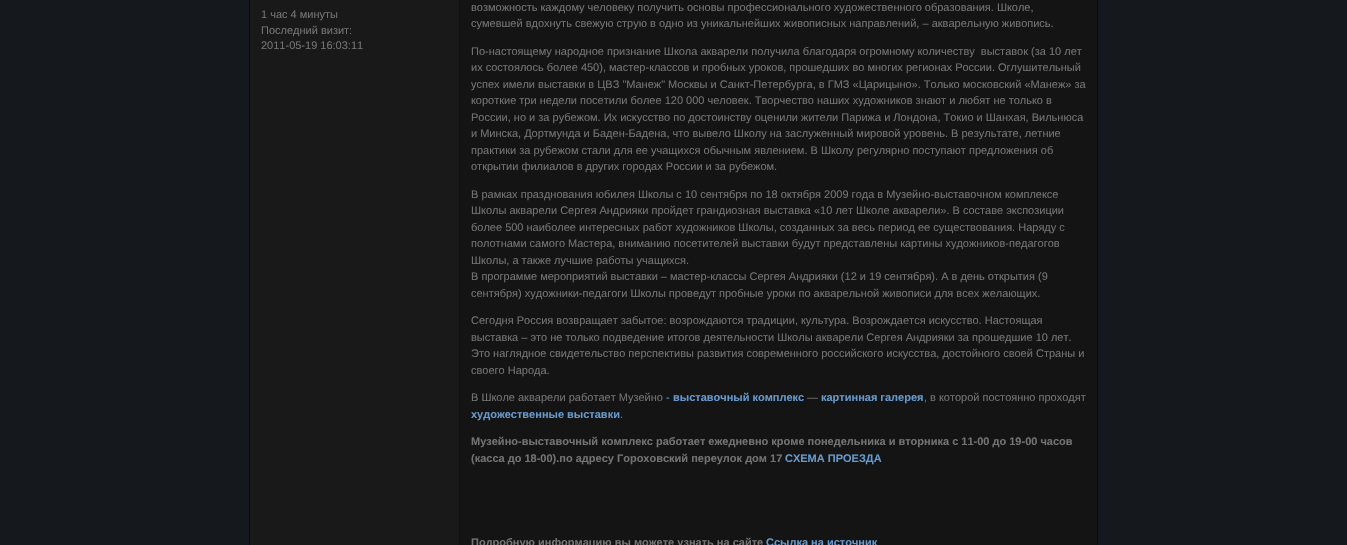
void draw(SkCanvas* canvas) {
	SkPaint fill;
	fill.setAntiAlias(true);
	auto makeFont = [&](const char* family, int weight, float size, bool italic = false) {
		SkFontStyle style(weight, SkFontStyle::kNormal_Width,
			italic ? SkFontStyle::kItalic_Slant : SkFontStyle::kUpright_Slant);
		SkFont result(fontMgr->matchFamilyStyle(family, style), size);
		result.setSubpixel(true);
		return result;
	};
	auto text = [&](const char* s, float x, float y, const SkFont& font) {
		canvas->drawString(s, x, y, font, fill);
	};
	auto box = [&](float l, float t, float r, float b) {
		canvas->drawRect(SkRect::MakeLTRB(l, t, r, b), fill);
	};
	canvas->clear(0xFF15191D);
	fill.setColor(0xFF181918);
	box(250, 0, 459, 545);
	fill.setColor(0xFF0A0A0A);
	box(1097, 0, 1098, 545);
	box(249, 0, 250, 545);
	fill.setColor(0xFF141414);
	box(460, 0, 1097, 545);
	fill.setColor(0xFF0F0F0F);
	box(459, 0, 460, 545);
	auto font1 = makeFont("Liberation Sans", 400, 11);
	fill.setColor(0xFF737373);
	text("1 час 4 минуты", 261, 18, font1);
	text("Последний визит:", 261, 34, font1);
	text("2011-05-19 16:03:11", 261, 49, font1);
	text("возможность каждому человеку получить основы профессионального художественного образования. Школе,", 471, 11, font1);
	text("сумевшей вдохнуть свежую струю в одно из уникальнейших живописных направлений, – акварельную живопись.", 471, 27, font1);
	text("По-настоящему народное признание Школа акварели получила благодаря огромному количеству  выставок (за 10 лет", 471, 55, font1);
	text("их состоялось более 450), мастер-классов и пробных уроков, прошедших во многих регионах России. Оглушительный", 471, 71, font1);
	text("успех имели выставки в ЦВЗ \"Манеж\" Москвы и Санкт-Петербурга, в ГМЗ «Царицыно». Только московский «Манеж» за", 471, 88, font1);
	text("короткие три недели посетили более 120 000 человек. Творчество наших художников знают и любят не только в", 471, 104, font1);
	text("России, но и за рубежом. Их искусство по достоинству оценили жители Парижа и Лондона, Токио и Шанхая, Вильнюса", 471, 121, font1);
	text("и Минска, Дортмунда и Баден-Бадена, что вывело Школу на заслуженный мировой уровень. В результате, летние", 471, 137, font1);
	text("практики за рубежом стали для ее учащихся обычным явлением. В Школу регулярно поступают предложения об", 471, 154, font1);
	text("открытии филиалов в других городах России и за рубежом.", 471, 170, font1);
	text("В рамках празднования юбилея Школы с 10 сентября по 18 октября 2009 года в Музейно-выставочном комплексе", 471, 198, font1);
	text("Школы акварели Сергея Андрияки пройдет грандиозная выставка «10 лет Школе акварели». В составе экспозиции", 471, 214, font1);
	text("более 500 наиболее интересных работ художников Школы, созданных за весь период ее существования. Наряду с", 471, 231, font1);
	text("полотнами самого Мастера, вниманию посетителей выставки будут представлены картины художников-педагогов", 471, 247, font1);
	text("Школы, а также лучшие работы учащихся.", 471, 264, font1);
	text("В программе мероприятий выставки – мастер-классы Сергея Андрияки (12 и 19 сентября). А в день открытия (9", 471, 280, font1);
	text("сентября) художники-педагоги Школы проведут пробные уроки по акварельной живописи для всех желающих.", 471, 297, font1);
	text("Сегодня Россия возвращает забытое: возрождаются традиции, культура. Возрождается искусство. Настоящая", 471, 324, font1);
	text("выставка – это не только подведение итогов деятельности Школы акварели Сергея Андрияки за прошедшие 10 лет.", 471, 341, font1);
	text("Это наглядное свидетельство перспективы развития современного российского искусства, достойного своей Страны и", 471, 357, font1);
	text("своего Народа.", 471, 374, font1);
	text("В Школе акварели работает Музейно", 471, 401, font1);
	fill.setColor(0xFF6699CC);
	text("-", 666, 401, font1);
	auto font2 = makeFont("Liberation Sans", 700, 11);
	text("выставочный комплекс", 673, 401, font2);
	fill.setColor(0xFF737373);
	text("—", 807, 401, font1);
	fill.setColor(0xFF6699CC);
	text("картинная галерея", 821, 401, font2);
	fill.setColor(0xFF737373);
	text(", в которой постоянно проходят", 924, 401, font1);
	fill.setColor(0xFF6699CC);
	text("художественные выставки", 471, 418, font2);
	fill.setColor(0xFF737373);
	text(".", 620, 418, font1);
	text("Музейно-выставочный комплекс работает ежедневно кроме понедельника и вторника с 11-00 до 19-00 часов", 471, 445, font2);
	text("(касса до 18-00).по адресу Гороховский переулок дом 17", 471, 462, font2);
	fill.setColor(0xFF6699CC);
	text("СХЕМА ПРОЕЗДА", 785, 462, font2);
	fill.setColor(0xFF737373);
	text("Подробную информацию вы можете узнать на сайте", 471, 546, font2);
	fill.setColor(0xFF6699CC);
	text("Ссылка на источник", 766, 546, font2);
}
